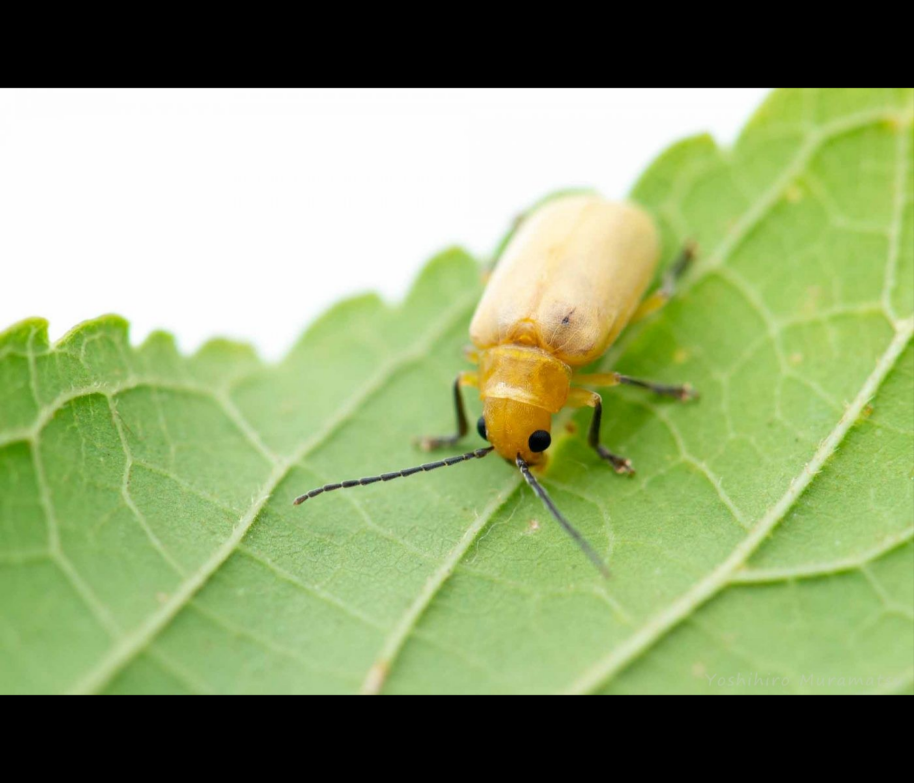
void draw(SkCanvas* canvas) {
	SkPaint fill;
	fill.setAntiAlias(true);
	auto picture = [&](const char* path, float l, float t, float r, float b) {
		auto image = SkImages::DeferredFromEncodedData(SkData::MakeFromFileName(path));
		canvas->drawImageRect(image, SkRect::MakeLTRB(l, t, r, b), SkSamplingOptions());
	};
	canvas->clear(0xFF000000);
	picture("image0.png", 0, 87, 914, 696);
}
